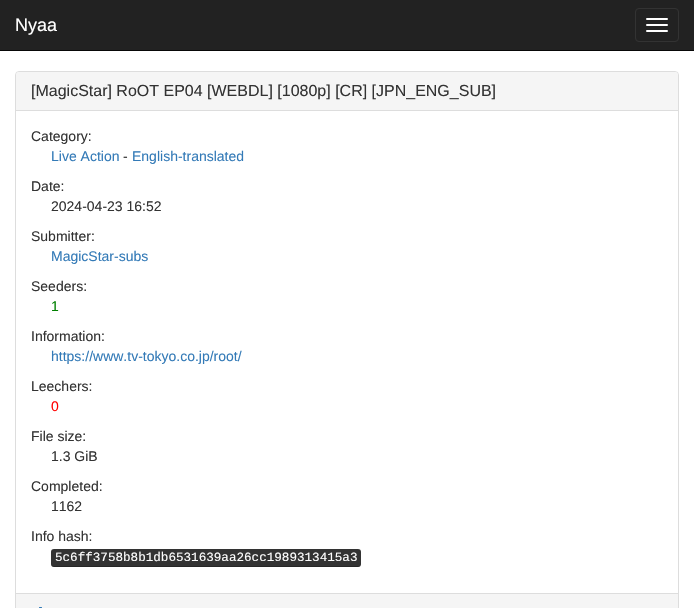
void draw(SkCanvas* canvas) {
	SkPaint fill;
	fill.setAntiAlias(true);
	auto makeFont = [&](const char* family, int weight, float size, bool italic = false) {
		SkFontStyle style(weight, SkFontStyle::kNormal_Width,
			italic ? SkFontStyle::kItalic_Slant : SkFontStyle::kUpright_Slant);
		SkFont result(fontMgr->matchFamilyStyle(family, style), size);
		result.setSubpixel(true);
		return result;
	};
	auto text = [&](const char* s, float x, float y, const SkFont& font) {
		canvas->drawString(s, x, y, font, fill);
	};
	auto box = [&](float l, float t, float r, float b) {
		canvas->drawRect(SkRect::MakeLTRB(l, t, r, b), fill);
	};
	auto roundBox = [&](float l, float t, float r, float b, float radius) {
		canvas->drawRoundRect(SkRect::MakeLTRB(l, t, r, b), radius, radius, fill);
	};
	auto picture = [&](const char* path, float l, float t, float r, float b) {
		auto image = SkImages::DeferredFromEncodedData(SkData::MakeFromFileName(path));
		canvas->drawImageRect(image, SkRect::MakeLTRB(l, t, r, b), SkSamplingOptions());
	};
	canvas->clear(0xFFFFFFFF);
	fill.setColor(0xFF222222);
	box(0, 0, 694, 50);
	fill.setColor(0xFF080808);
	box(0, 50, 694, 51);
	fill.setStyle(SkPaint::kStroke_Style);
	fill.setStrokeWidth(1);
	fill.setColor(0xFF333333);
	canvas->drawRoundRect(SkRect::MakeLTRB(635.5f, 8.5f, 678.5f, 41.5f), 3.5f, 3.5f, fill);
	fill.setStyle(SkPaint::kFill_Style);
	fill.setColor(0xFFFFFFFF);
	roundBox(646, 18, 668, 20, 1);
	roundBox(646, 24, 668, 26, 1);
	roundBox(646, 30, 668, 32, 1);
	fill.setStyle(SkPaint::kStroke_Style);
	fill.setColor(0xFFDDDDDD);
	canvas->drawRoundRect(SkRect::MakeLTRB(15.5f, 71.5f, 678.5f, 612.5f), 3.5f, 3.5f, fill);
	fill.setStyle(SkPaint::kFill_Style);
	fill.setColor(0xFFF5F5F5);
	canvas->drawPath(SkPathBuilder().moveTo(19, 72).lineTo(675, 72).cubicTo(676.5f, 72, 678, 73.5f, 678, 75).lineTo(678, 111).lineTo(16, 111).lineTo(16, 75).cubicTo(16, 73.5f, 17.5f, 72, 19, 72).close().detach(), fill);
	fill.setColor(0xFFDDDDDD);
	box(16, 110, 678, 111);
	fill.setColor(0xFF333333);
	roundBox(51, 549, 361, 567, 3);
	fill.setColor(0x40000000);
	canvas->drawPath(SkPathBuilder().moveTo(51, 563).cubicTo(51, 565, 52, 567, 54, 567).lineTo(359, 567).lineTo(360, 566).lineTo(361, 563).cubicTo(361, 565, 360, 566, 358, 566).lineTo(54, 566).cubicTo(52, 566, 51, 565, 51, 563).close().detach(), fill);
	fill.setColor(0xFFF5F5F5);
	box(16, 594, 678, 608);
	fill.setColor(0xFFDDDDDD);
	box(16, 593, 678, 594);
	picture("image0.png", 39, 607, 42, 608);
	auto font1 = makeFont("Liberation Sans", 400, 18);
	fill.setColor(0xFFFFFFFF);
	text("Nyaa", 15, 31, font1);
	auto font2 = makeFont("Liberation Sans", 400, 16);
	fill.setColor(0xFF333333);
	text("[MagicStar] RoOT EP04 [WEBDL] [1080p] [CR] [JPN_ENG_SUB]", 31, 96, font2);
	auto font3 = makeFont("Liberation Sans", 400, 14);
	text("Category:", 31, 141, font3);
	fill.setColor(0xFF337AB7);
	text("Live Action", 51, 161, font3);
	fill.setColor(0xFF333333);
	text("-", 123, 161, font3);
	fill.setColor(0xFF337AB7);
	text("English-translated", 132, 161, font3);
	fill.setColor(0xFF333333);
	text("Date:", 31, 191, font3);
	text("2024-04-23 16:52", 51, 211, font3);
	text("Submitter:", 31, 241, font3);
	fill.setColor(0xFF337AB7);
	text("MagicStar-subs", 51, 261, font3);
	fill.setColor(0xFF333333);
	text("Seeders:", 31, 291, font3);
	fill.setColor(0xFF008000);
	text("1", 51, 311, font3);
	fill.setColor(0xFF333333);
	text("Information:", 31, 341, font3);
	fill.setColor(0xFF337AB7);
	text("https://www.tv-tokyo.co.jp/root/", 51, 361, font3);
	fill.setColor(0xFF333333);
	text("Leechers:", 31, 391, font3);
	fill.setColor(0xFFFF0000);
	text("0", 51, 411, font3);
	fill.setColor(0xFF333333);
	text("File size:", 31, 441, font3);
	text("1.3 GiB", 51, 461, font3);
	text("Completed:", 31, 491, font3);
	text("1162", 51, 511, font3);
	text("Info hash:", 31, 541, font3);
	auto font4 = makeFont("Liberation Mono", 400, 12.6f);
	fill.setColor(0xFFFFFFFF);
	text("5c6ff3758b8b1db6531639aa26cc1989313415a3", 55, 561, font4);
}
